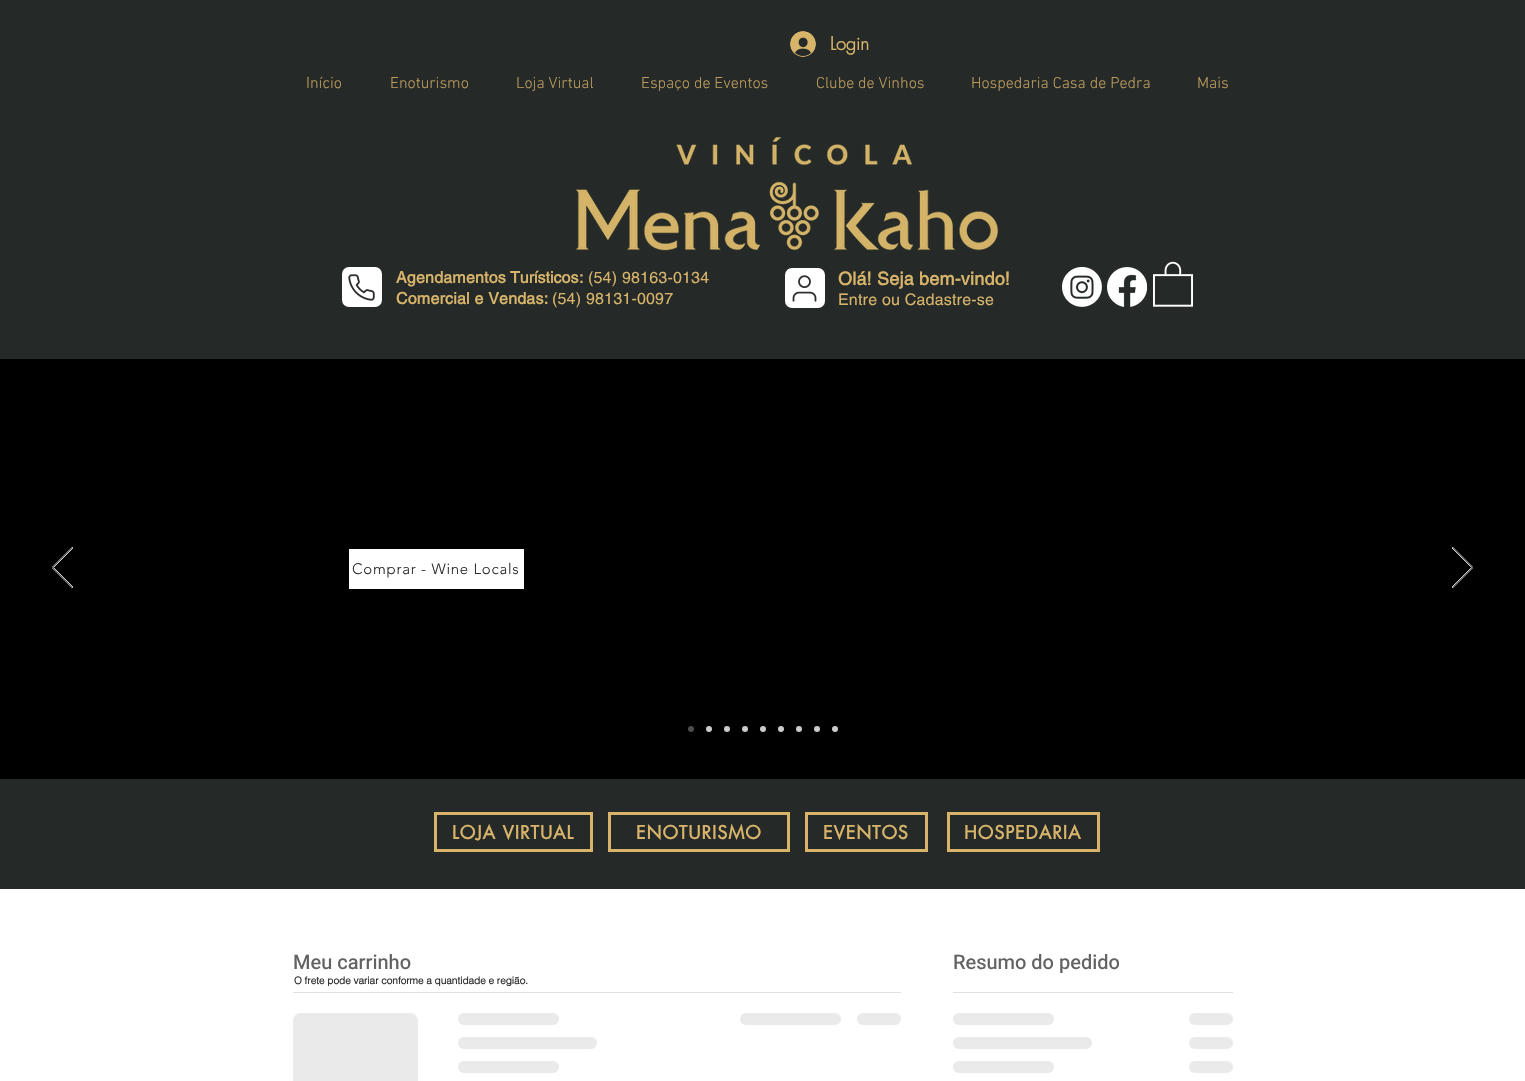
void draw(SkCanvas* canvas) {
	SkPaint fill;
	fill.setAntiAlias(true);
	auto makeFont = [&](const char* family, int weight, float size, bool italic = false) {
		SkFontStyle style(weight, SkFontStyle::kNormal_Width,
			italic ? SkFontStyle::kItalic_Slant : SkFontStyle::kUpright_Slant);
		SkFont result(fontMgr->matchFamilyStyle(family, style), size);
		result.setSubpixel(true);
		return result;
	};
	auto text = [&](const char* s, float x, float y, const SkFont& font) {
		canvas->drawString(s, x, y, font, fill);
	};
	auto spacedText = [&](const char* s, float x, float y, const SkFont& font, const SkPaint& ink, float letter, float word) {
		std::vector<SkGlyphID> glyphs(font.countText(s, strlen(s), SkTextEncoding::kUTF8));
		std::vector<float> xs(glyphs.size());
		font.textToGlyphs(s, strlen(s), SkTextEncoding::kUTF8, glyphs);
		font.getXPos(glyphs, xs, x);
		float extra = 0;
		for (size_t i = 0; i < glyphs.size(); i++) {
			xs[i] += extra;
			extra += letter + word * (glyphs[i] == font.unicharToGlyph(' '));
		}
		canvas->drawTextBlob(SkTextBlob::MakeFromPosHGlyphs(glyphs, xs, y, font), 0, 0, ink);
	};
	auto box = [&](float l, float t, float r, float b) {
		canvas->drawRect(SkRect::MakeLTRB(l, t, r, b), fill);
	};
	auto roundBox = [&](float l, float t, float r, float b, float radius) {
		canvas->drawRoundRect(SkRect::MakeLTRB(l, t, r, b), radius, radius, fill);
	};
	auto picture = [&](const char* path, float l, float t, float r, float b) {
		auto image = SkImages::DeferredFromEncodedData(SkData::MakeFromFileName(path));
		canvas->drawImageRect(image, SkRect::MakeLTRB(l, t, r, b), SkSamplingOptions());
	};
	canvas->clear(0xFFFFFFFF);
	fill.setColor(0xFF252A28);
	box(0, 0, 1525, 889);
	picture("image0.png", 790, 31, 816, 57);
	picture("image1.png", 575, 137, 999, 251);
	fill.setColor(0xFFFFFFFF);
	roundBox(342, 267, 382, 307, 7);
	picture("image2.png", 348, 274, 375, 301);
	roundBox(785, 268, 825, 308, 7);
	picture("image3.png", 792, 275, 817, 302);
	picture("image4.png", 1062, 267, 1102, 307);
	picture("image5.png", 1107, 267, 1147, 307);
	picture("image6.png", 1153, 261, 1193, 307);
	fill.setColor(0xFF000000);
	box(0, 359, 1525, 779);
	canvas->save();
	canvas->clipRect(SkRect::MakeLTRB(52, 547, 73, 588));
	fill.setStyle(SkPaint::kStroke_Style);
	fill.setStrokeWidth(1);
	fill.setColor(0xFFCBCBCB);
	canvas->drawPath(SkPathBuilder().moveTo(72.5f, 588).lineTo(52, 567.5f).lineTo(72.5f, 547).lineTo(73, 548).lineTo(53.5f, 567.5f).lineTo(73, 587).close().detach(), fill);
	canvas->restore();
	fill.setStyle(SkPaint::kFill_Style);
	fill.setColor(0xFFFFFFFF);
	box(349, 549, 524, 589);
	canvas->save();
	canvas->clipRect(SkRect::MakeLTRB(1452, 547, 1473, 588));
	fill.setStyle(SkPaint::kStroke_Style);
	fill.setColor(0xFFCBCBCB);
	canvas->drawPath(SkPathBuilder().moveTo(1452.5f, 588).lineTo(1473, 567.5f).lineTo(1452.5f, 547).lineTo(1452, 548).lineTo(1471.5f, 567.5f).lineTo(1452, 587).close().detach(), fill);
	canvas->restore();
	fill.setStyle(SkPaint::kFill_Style);
	fill.setColor(0xFF4D4D4D);
	canvas->drawCircle(691, 729, 3, fill);
	fill.setColor(0xFFCBCBCB);
	canvas->drawCircle(709, 729, 3, fill);
	canvas->drawCircle(727, 729, 3, fill);
	canvas->drawCircle(745, 729, 3, fill);
	canvas->drawCircle(763, 729, 3, fill);
	canvas->drawCircle(781, 729, 3, fill);
	canvas->drawCircle(799, 729, 3, fill);
	canvas->drawCircle(817, 729, 3, fill);
	canvas->drawCircle(835, 729, 3, fill);
	fill.setStyle(SkPaint::kStroke_Style);
	fill.setStrokeWidth(3);
	fill.setColor(0xFFD7B46A);
	canvas->drawRect(SkRect::MakeLTRB(435.5f, 813.5f, 591.5f, 850.5f), fill);
	canvas->drawRect(SkRect::MakeLTRB(609.5f, 813.5f, 788.5f, 850.5f), fill);
	canvas->drawRect(SkRect::MakeLTRB(806.5f, 813.5f, 926.5f, 850.5f), fill);
	canvas->drawRect(SkRect::MakeLTRB(948.5f, 813.5f, 1098.5f, 850.5f), fill);
	fill.setStyle(SkPaint::kFill_Style);
	fill.setColor(0xFFE0E0E0);
	box(293, 992, 901, 993);
	{
		const SkColor colors[] = {0xFFEAEAEA, 0xFFD5D5D5, 0xFFEAEAEA};
		const float stops[] = {0.25f, 0.37f, 0.63f};
		const SkPoint ends[] = {{293, 1076}, {793, 1076}};
		fill.setShader(SkGradientShader::MakeLinear(ends, colors, stops, 3, SkTileMode::kClamp));
		fill.setAlpha(255);
	}
	roundBox(293, 1013, 418, 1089, 8);
	{
		const SkColor colors[] = {0xFFEAEAEA, 0xFFD5D5D5, 0xFFEAEAEA};
		const float stops[] = {0.25f, 0.37f, 0.63f};
		const SkPoint ends[] = {{458, 1019}, {862, 1019}};
		fill.setShader(SkGradientShader::MakeLinear(ends, colors, stops, 3, SkTileMode::kClamp));
		fill.setAlpha(255);
	}
	roundBox(458, 1013, 559, 1025, 6);
	{
		const SkColor colors[] = {0xFFEAEAEA, 0xFFD5D5D5, 0xFFEAEAEA};
		const float stops[] = {0.25f, 0.37f, 0.63f};
		const SkPoint ends[] = {{458, 1043}, {1014, 1043}};
		fill.setShader(SkGradientShader::MakeLinear(ends, colors, stops, 3, SkTileMode::kClamp));
		fill.setAlpha(255);
	}
	roundBox(458, 1037, 597, 1049, 6);
	{
		const SkColor colors[] = {0xFFEAEAEA, 0xFFD5D5D5, 0xFFEAEAEA};
		const float stops[] = {0.25f, 0.37f, 0.63f};
		const SkPoint ends[] = {{458, 1067}, {862, 1067}};
		fill.setShader(SkGradientShader::MakeLinear(ends, colors, stops, 3, SkTileMode::kClamp));
		fill.setAlpha(255);
	}
	roundBox(458, 1061, 559, 1073, 6);
	{
		const SkColor colors[] = {0xFFEAEAEA, 0xFFD5D5D5, 0xFFEAEAEA};
		const float stops[] = {0.25f, 0.37f, 0.63f};
		const SkPoint ends[] = {{740, 1019}, {1144, 1019}};
		fill.setShader(SkGradientShader::MakeLinear(ends, colors, stops, 3, SkTileMode::kClamp));
		fill.setAlpha(255);
	}
	roundBox(740, 1013, 841, 1025, 6);
	{
		const SkColor colors[] = {0xFFEAEAEA, 0xFFD5D5D5, 0xFFEAEAEA};
		const float stops[] = {0.25f, 0.37f, 0.63f};
		const SkPoint ends[] = {{857, 1019}, {1033, 1019}};
		fill.setShader(SkGradientShader::MakeLinear(ends, colors, stops, 3, SkTileMode::kClamp));
		fill.setAlpha(255);
	}
	roundBox(857, 1013, 901, 1025, 6);
	fill.setShader(nullptr);
	fill.setColor(0xFFE0E0E0);
	box(953, 992, 1233, 993);
	{
		const SkColor colors[] = {0xFFEAEAEA, 0xFFD5D5D5, 0xFFEAEAEA};
		const float stops[] = {0.25f, 0.37f, 0.63f};
		const SkPoint ends[] = {{953, 1019}, {1357, 1019}};
		fill.setShader(SkGradientShader::MakeLinear(ends, colors, stops, 3, SkTileMode::kClamp));
		fill.setAlpha(255);
	}
	roundBox(953, 1013, 1054, 1025, 6);
	{
		const SkColor colors[] = {0xFFEAEAEA, 0xFFD5D5D5, 0xFFEAEAEA};
		const float stops[] = {0.25f, 0.37f, 0.63f};
		const SkPoint ends[] = {{1189, 1019}, {1365, 1019}};
		fill.setShader(SkGradientShader::MakeLinear(ends, colors, stops, 3, SkTileMode::kClamp));
		fill.setAlpha(255);
	}
	roundBox(1189, 1013, 1233, 1025, 6);
	{
		const SkColor colors[] = {0xFFEAEAEA, 0xFFD5D5D5, 0xFFEAEAEA};
		const float stops[] = {0.25f, 0.37f, 0.63f};
		const SkPoint ends[] = {{953, 1043}, {1509, 1043}};
		fill.setShader(SkGradientShader::MakeLinear(ends, colors, stops, 3, SkTileMode::kClamp));
		fill.setAlpha(255);
	}
	roundBox(953, 1037, 1092, 1049, 6);
	{
		const SkColor colors[] = {0xFFEAEAEA, 0xFFD5D5D5, 0xFFEAEAEA};
		const float stops[] = {0.25f, 0.37f, 0.63f};
		const SkPoint ends[] = {{1189, 1043}, {1365, 1043}};
		fill.setShader(SkGradientShader::MakeLinear(ends, colors, stops, 3, SkTileMode::kClamp));
		fill.setAlpha(255);
	}
	roundBox(1189, 1037, 1233, 1049, 6);
	{
		const SkColor colors[] = {0xFFEAEAEA, 0xFFD5D5D5, 0xFFEAEAEA};
		const float stops[] = {0.25f, 0.37f, 0.63f};
		const SkPoint ends[] = {{953, 1067}, {1357, 1067}};
		fill.setShader(SkGradientShader::MakeLinear(ends, colors, stops, 3, SkTileMode::kClamp));
		fill.setAlpha(255);
	}
	roundBox(953, 1061, 1054, 1073, 6);
	{
		const SkColor colors[] = {0xFFEAEAEA, 0xFFD5D5D5, 0xFFEAEAEA};
		const float stops[] = {0.25f, 0.37f, 0.63f};
		const SkPoint ends[] = {{1189, 1067}, {1365, 1067}};
		fill.setShader(SkGradientShader::MakeLinear(ends, colors, stops, 3, SkTileMode::kClamp));
		fill.setAlpha(255);
	}
	roundBox(1189, 1061, 1233, 1073, 6);
	auto font1 = makeFont("futura", 700, 18);
	fill.setShader(nullptr);
	fill.setColor(0xFFD7B46A);
	text("Login", 830, 50, font1);
	auto font2 = makeFont("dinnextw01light", 300, 16);
	fill.setColor(0xFFBC9B5D);
	text("Início", 306, 88, font2);
	text("Enoturismo", 390, 88, font2);
	text("Loja Virtual", 516, 88, font2);
	text("Espaço de Eventos", 641, 88, font2);
	text("Clube de Vinhos", 816, 88, font2);
	text("Hospedaria Casa de Pedra", 971, 88, font2);
	text("Mais", 1197, 88, font2);
	auto font3 = makeFont("helvetica", 700, 16);
	fill.setColor(0xFFD7B46A);
	spacedText("Agendamentos", 396, 283, font3, fill, 0.2f, 0);
	text("Turísticos", 510, 283, font3);
	spacedText(":", 579, 283, font3, fill, 0.2f, 0);
	auto font4 = makeFont("helvetica", 400, 16);
	spacedText("(54) 98163-0134", 588, 283, font4, fill, 0.2f, 0);
	spacedText("Comercial e Vendas:", 396, 304, font3, fill, 0.2f, 0);
	spacedText("(54) 98131-0097", 552, 304, font4, fill, 0.2f, 0);
	auto font5 = makeFont("helvetica", 700, 18);
	spacedText("Olá! Seja bem-vindo!", 838, 285, font5, fill, 0.2f, 0);
	spacedText("Entre ou Cadastre-se", 838, 305, font4, fill, 0.2f, 0);
	auto font6 = makeFont("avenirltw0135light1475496", 300, 15);
	fill.setColor(0xFF2F2E2E);
	spacedText("Comprar - Wine Locals", 352, 574, font6, fill, 0.75f, 0);
	auto font7 = makeFont("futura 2", 700, 18);
	fill.setColor(0xFFD7B46A);
	spacedText("LOJA VIRTUAL", 452, 839, font7, fill, 0.9f, 0);
	spacedText("ENOTURISMO", 636, 839, font7, fill, 0.9f, 0);
	spacedText("EVENTOS", 823, 839, font7, fill, 0.9f, 0);
	spacedText("HOSPEDARIA", 964, 839, font7, fill, 0.9f, 0);
	auto font8 = makeFont("Heebo", 500, 20);
	fill.setColor(0xFF636262);
	text("Meu carrinho", 293, 969, font8);
	text("Resumo do pedido", 953, 969, font8);
	auto font9 = makeFont("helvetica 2", 700, 10);
	fill.setColor(0xFF2F2E2E);
	text("O frete pode variar conforme a quantidade e região.", 294, 984, font9);
}
